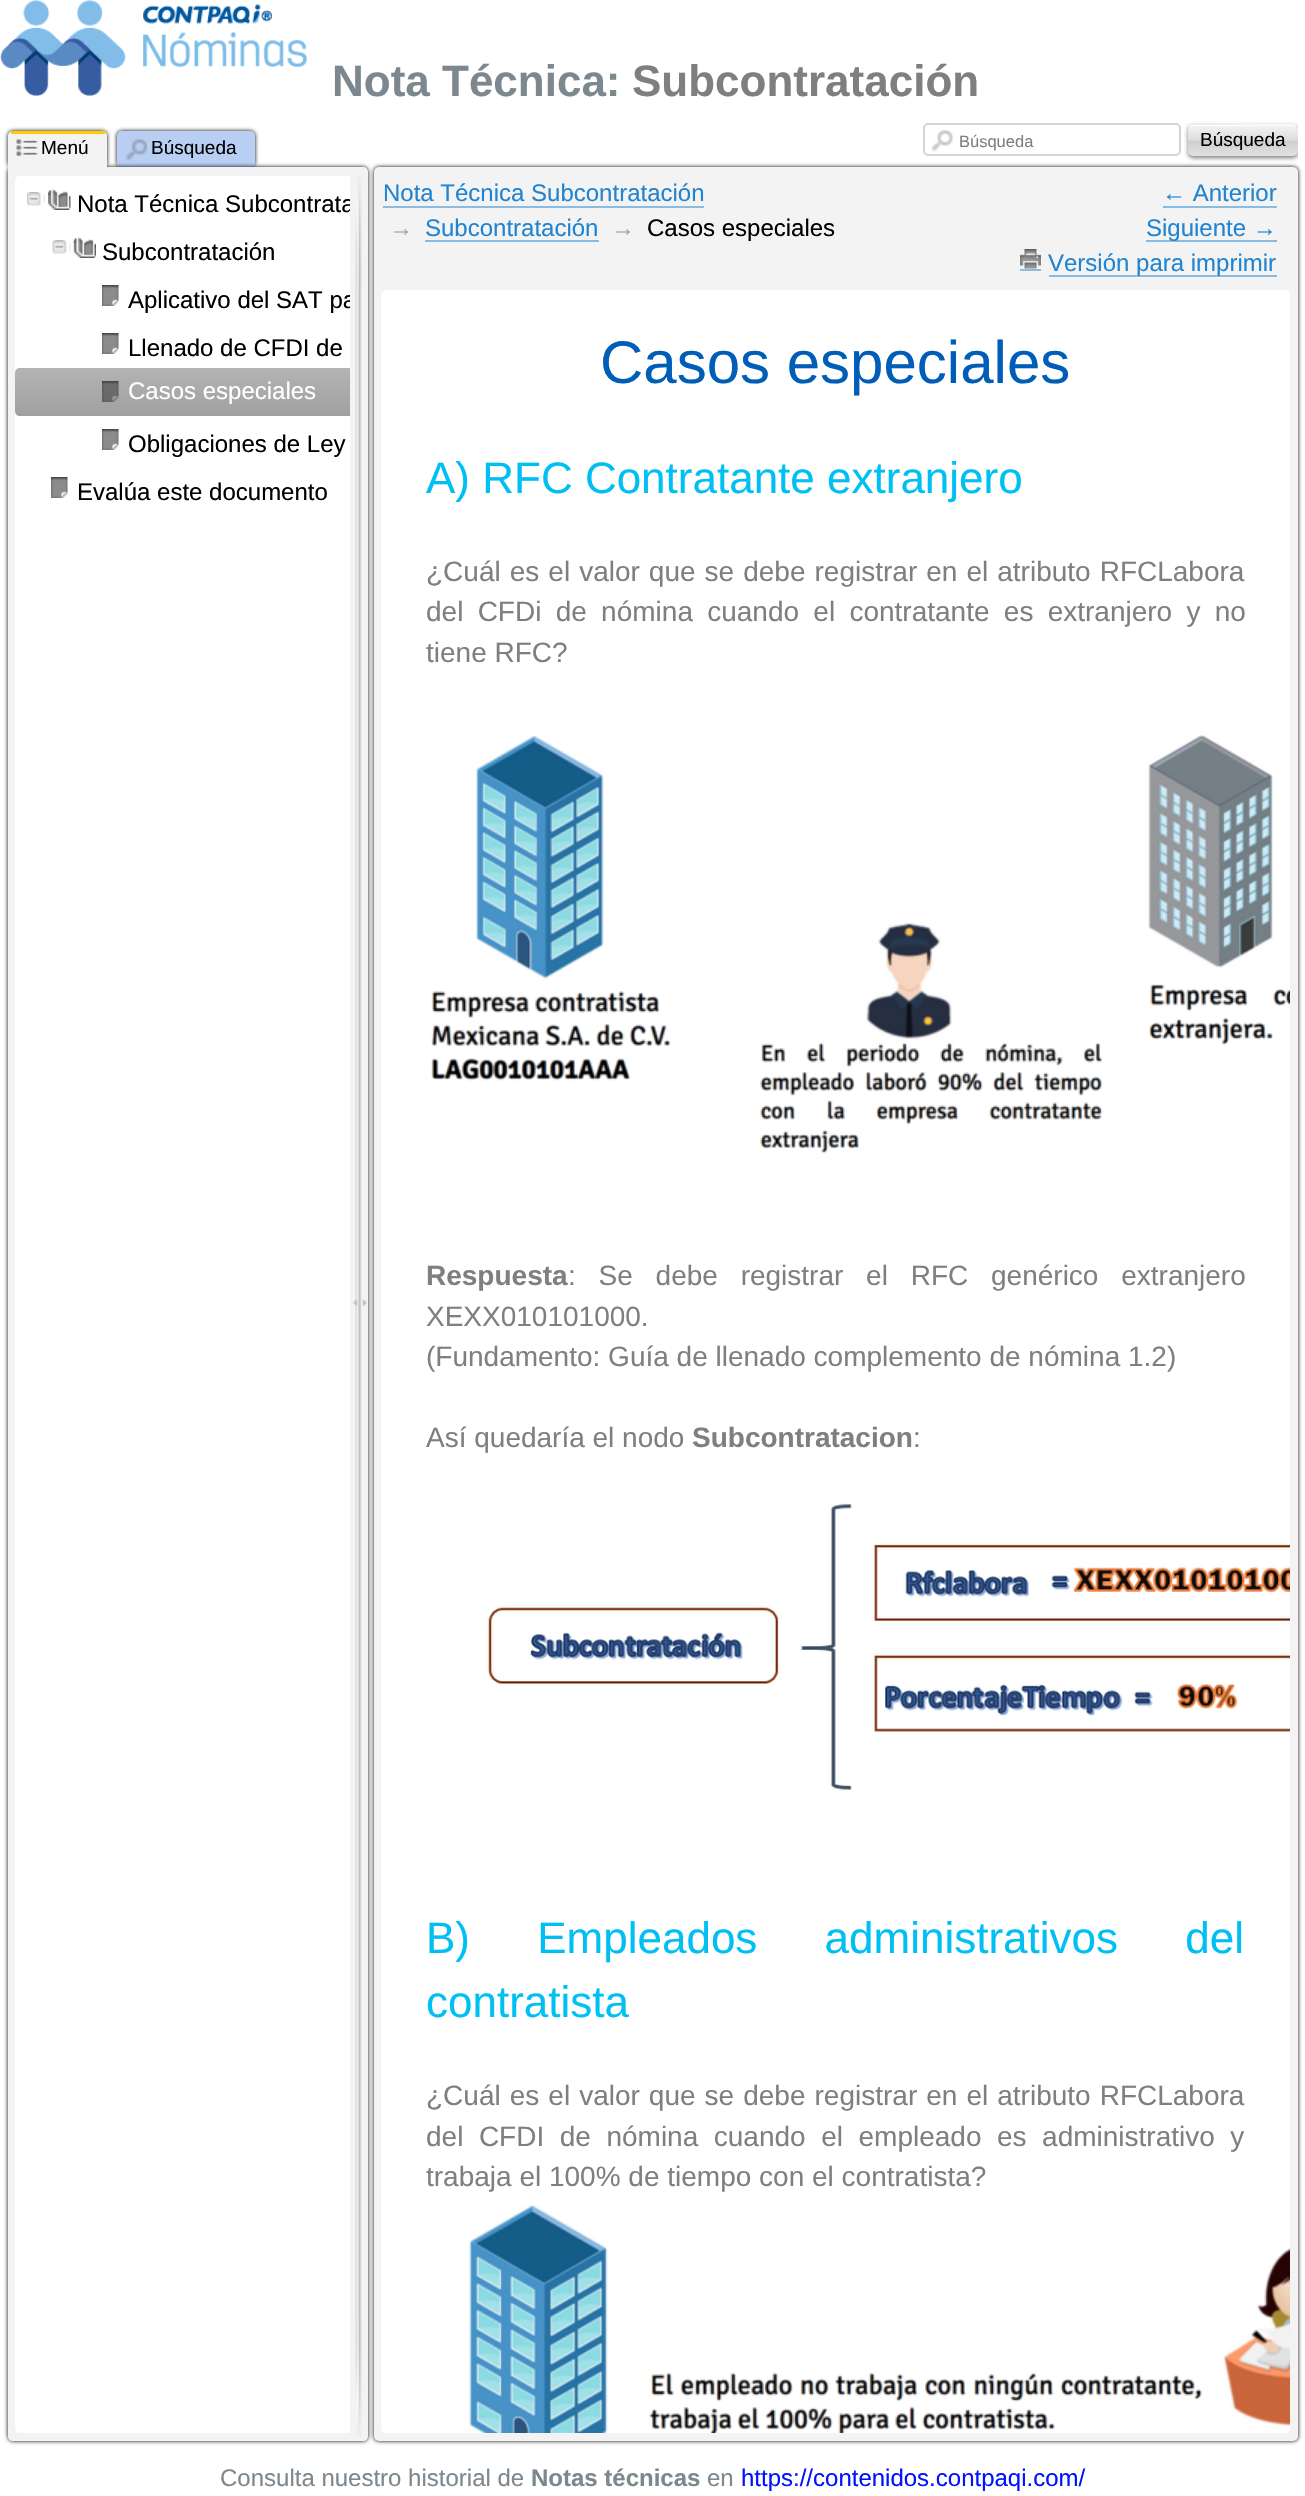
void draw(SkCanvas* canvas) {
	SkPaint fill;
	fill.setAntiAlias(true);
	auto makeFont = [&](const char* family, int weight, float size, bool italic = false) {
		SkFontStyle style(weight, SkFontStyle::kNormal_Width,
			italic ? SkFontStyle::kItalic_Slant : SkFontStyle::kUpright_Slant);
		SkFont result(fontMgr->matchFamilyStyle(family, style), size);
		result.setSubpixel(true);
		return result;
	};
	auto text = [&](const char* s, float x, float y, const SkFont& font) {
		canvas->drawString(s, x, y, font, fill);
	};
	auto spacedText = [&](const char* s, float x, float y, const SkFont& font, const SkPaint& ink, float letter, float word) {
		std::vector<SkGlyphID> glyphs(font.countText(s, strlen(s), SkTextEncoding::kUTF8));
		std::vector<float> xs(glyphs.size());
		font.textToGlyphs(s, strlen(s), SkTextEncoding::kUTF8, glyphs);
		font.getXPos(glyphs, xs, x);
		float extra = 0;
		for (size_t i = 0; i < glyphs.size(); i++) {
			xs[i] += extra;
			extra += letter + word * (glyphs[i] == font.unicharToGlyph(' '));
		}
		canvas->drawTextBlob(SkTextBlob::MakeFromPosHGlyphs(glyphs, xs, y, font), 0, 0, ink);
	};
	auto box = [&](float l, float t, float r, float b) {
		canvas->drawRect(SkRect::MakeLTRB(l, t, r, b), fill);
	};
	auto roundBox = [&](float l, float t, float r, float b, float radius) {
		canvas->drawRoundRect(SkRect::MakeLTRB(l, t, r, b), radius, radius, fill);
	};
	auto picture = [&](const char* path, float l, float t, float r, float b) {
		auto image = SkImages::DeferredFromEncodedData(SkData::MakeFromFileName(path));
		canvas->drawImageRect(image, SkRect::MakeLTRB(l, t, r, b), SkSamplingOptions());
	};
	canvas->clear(0xFFFFFFFF);
	picture("image0.png", 0, 0, 308, 96);
	fill.setColor(0xFF000000);
	fill.setMaskFilter(SkMaskFilter::MakeBlur(kNormal_SkBlurStyle, 2));
	canvas->drawRoundRect(SkRect::MakeLTRB(117, 131, 255, 167), 5, 5, fill);
	fill.setMaskFilter(nullptr);
	fill.setColor(0xFFB8CEF3);
	canvas->drawPath(SkPathBuilder().moveTo(122, 131).lineTo(250, 131).cubicTo(253, 131, 255, 133, 255, 136).lineTo(255, 173).lineTo(117, 173).lineTo(117, 136).cubicTo(117, 133, 119, 131, 122, 131).close().detach(), fill);
	canvas->drawPath(SkPathBuilder().moveTo(249, 156).lineTo(249, 169).cubicTo(251, 178, 262, 176, 269, 176).lineTo(269, 172.5f).cubicTo(262.5f, 172.5f, 254, 173.5f, 252, 165.5f).lineTo(252, 156).close().detach(), fill);
	canvas->drawPath(SkPathBuilder(SkPathFillType::kEvenOdd).moveTo(252, 153).lineTo(271.5f, 153).lineTo(271.5f, 172.5f).lineTo(261, 172.5f).cubicTo(256, 172.5f, 252, 168.5f, 252, 163.5f).close().moveTo(253.5f, 153).lineTo(271.5f, 153).lineTo(271.5f, 171).cubicTo(265.5f, 171, 253.5f, 173, 253.5f, 163.5f).close().detach(), fill);
	fill.setColor(0xFFF3F3F3);
	canvas->drawPath(SkPathBuilder().moveTo(8, 167).lineTo(363, 167).cubicTo(366, 167, 368, 169, 368, 172).lineTo(368, 2436).cubicTo(368, 2439, 366, 2441, 363, 2441).lineTo(13, 2441).cubicTo(10, 2441, 8, 2439, 8, 2436).close().detach(), fill);
	fill.setColor(0xFF000000);
	fill.setMaskFilter(SkMaskFilter::MakeBlur(kNormal_SkBlurStyle, 2));
	canvas->drawRoundRect(SkRect::MakeLTRB(8, 131, 107, 167), 5, 5, fill);
	fill.setMaskFilter(nullptr);
	picture("image2.png", 126, 139, 147, 161);
	canvas->save();
	canvas->clipPath(SkPathBuilder(SkPathFillType::kEvenOdd).moveTo(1, 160).lineTo(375, 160).lineTo(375, 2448).lineTo(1, 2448).close().moveTo(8, 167).lineTo(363, 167).cubicTo(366, 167, 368, 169, 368, 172).lineTo(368, 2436).cubicTo(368, 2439, 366, 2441, 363, 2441).lineTo(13, 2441).cubicTo(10, 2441, 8, 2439, 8, 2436).close().detach(), true);
	fill.setMaskFilter(SkMaskFilter::MakeBlur(kNormal_SkBlurStyle, 2));
	canvas->drawRoundRect(SkRect::MakeLTRB(8, 167, 368, 2441), 5, 5, fill);
	fill.setMaskFilter(nullptr);
	canvas->restore();
	fill.setColor(0xFFF3F3F3);
	canvas->drawPath(SkPathBuilder().moveTo(13, 131).lineTo(102, 131).cubicTo(105, 131, 107, 133, 107, 136).lineTo(107, 173).lineTo(8, 173).lineTo(8, 136).cubicTo(8, 133, 10, 131, 13, 131).close().detach(), fill);
	picture("image1.png", 16, 139, 38, 156);
	fill.setColor(0xFFFFCC00);
	box(11, 131, 105, 134);
	fill.setColor(0xFFFFFFFF);
	canvas->drawPath(SkPathBuilder().moveTo(20, 176).lineTo(350, 176).lineTo(350, 2433).lineTo(20, 2433).cubicTo(17, 2433, 15, 2431, 15, 2428).lineTo(15, 181).cubicTo(15, 178, 17, 176, 20, 176).close().detach(), fill);
	picture("image3.png", 27, 192, 45, 206);
	picture("image4.png", 48, 189, 71, 210);
	picture("image5.png", 52, 240, 71, 254);
	picture("image6.png", 73, 237, 96, 258);
	picture("image7.png", 102, 285, 119, 306);
	picture("image7.png", 102, 333, 119, 354);
	{
		const SkColor colors[] = {0xFFB4B4B4, 0xFFA0A0A0};
		const float stops[] = {0, 1};
		const SkPoint ends[] = {{292, 367}, {292, 416}};
		fill.setShader(SkGradientShader::MakeLinear(ends, colors, stops, 2, SkTileMode::kClamp));
		fill.setAlpha(255);
	}
	canvas->drawPath(SkPathBuilder().moveTo(20, 368).lineTo(350, 368).lineTo(350, 416).lineTo(20, 416).cubicTo(17, 416, 15, 414, 15, 411).lineTo(15, 373).cubicTo(15, 370, 17, 368, 20, 368).close().detach(), fill);
	picture("image8.png", 102, 381, 119, 402);
	picture("image7.png", 102, 429, 119, 450);
	picture("image7.png", 51, 477, 68, 498);
	picture("image10.png", 355, 289, 362, 2318);
	picture("image9.png", 355, 174, 362, 290);
	picture("image11.png", 352, 1299, 367, 1307);
	picture("image12.png", 355, 2317, 362, 2438);
	fill.setStyle(SkPaint::kStroke_Style);
	fill.setStrokeWidth(2);
	fill.setShader(nullptr);
	fill.setColor(0xFFD4D4D4);
	canvas->drawRoundRect(SkRect::MakeLTRB(924, 124, 1180, 155), 4, 4, fill);
	picture("image13.png", 931, 130, 953, 152);
	canvas->save();
	canvas->clipRect(SkRect::MakeLTRB(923, 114, 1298, 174));
	fill.setStyle(SkPaint::kFill_Style);
	fill.setColor(0x80000000);
	fill.setMaskFilter(SkMaskFilter::MakeBlur(kNormal_SkBlurStyle, 2));
	canvas->drawRoundRect(SkRect::MakeLTRB(1188, 126, 1298, 158), 5, 5, fill);
	fill.setMaskFilter(nullptr);
	canvas->restore();
	{
		const SkColor colors[] = {0xFFF3F3F3, 0xFFDDDDDD, 0xFFCECECE, 0xFFE1E1E1};
		const float stops[] = {0, 0.49f, 0.51f, 1};
		const SkPoint ends[] = {{1243, 125}, {1243, 156}};
		fill.setShader(SkGradientShader::MakeLinear(ends, colors, stops, 4, SkTileMode::kClamp));
		fill.setAlpha(255);
	}
	roundBox(1188, 125, 1298, 156, 5);
	fill.setStyle(SkPaint::kStroke_Style);
	fill.setStrokeWidth(1.5f);
	fill.setShader(nullptr);
	fill.setColor(0xFFFFFFFF);
	canvas->drawPath(SkPathBuilder().moveTo(1190, 126.5f).lineTo(1192, 125.5f).lineTo(1276, 125).lineTo(1293, 125).lineTo(1295.5f, 126.5f).detach(), fill);
	fill.setStyle(SkPaint::kFill_Style);
	fill.setColor(0xFF000000);
	fill.setMaskFilter(SkMaskFilter::MakeBlur(kNormal_SkBlurStyle, 2));
	canvas->drawRoundRect(SkRect::MakeLTRB(374, 167, 1298, 2441), 5, 5, fill);
	fill.setMaskFilter(nullptr);
	fill.setColor(0xFFF3F3F3);
	roundBox(374, 167, 1298, 2441, 5);
	fill.setColor(0xFF8ABBE1);
	box(383, 206, 704, 208);
	box(425, 240, 599, 242);
	box(1163, 206, 1277, 208);
	box(1146, 240, 1277, 242);
	box(1020, 269, 1041, 271);
	box(1049, 275, 1277, 277);
	picture("image14.png", 1020, 249, 1041, 269);
	fill.setColor(0xFFFFFFFF);
	roundBox(381, 290, 1290, 2433, 5);
	picture("image15.png", 431, 735, 1290, 1154);
	picture("image16.png", 486, 1503, 1290, 1790);
	picture("image17.png", 469, 2205, 1290, 2433);
	auto font1 = makeFont("Liberation Sans", 700, 44);
	fill.setColor(0xFF7C878E);
	text("Nota Técnica:", 332, 96, font1);
	fill.setColor(0xFF7F7F7F);
	text("Subcontratación", 632, 96, font1);
	auto font2 = makeFont("Liberation Sans", 400, 19);
	fill.setColor(0xFF000000);
	text("Menú", 41, 154, font2);
	text("Búsqueda", 151, 154, font2);
	canvas->save();
	canvas->clipRect(SkRect::MakeLTRB(15, 176, 350, 2433));
	auto font3 = makeFont("Liberation Sans", 400, 24);
	text("Nota Técnica Subcontrata", 77, 212, font3);
	canvas->restore();
	text("Subcontratación", 102, 260, font3);
	canvas->save();
	canvas->clipRect(SkRect::MakeLTRB(15, 176, 350, 2433));
	text("Aplicativo del SAT pa", 128, 308, font3);
	canvas->restore();
	text("Llenado de CFDI de", 128, 356, font3);
	fill.setColor(0xFFFFFFFF);
	text("Casos especiales", 128, 399, font3);
	fill.setColor(0xFF000000);
	text("Obligaciones de Ley", 128, 452, font3);
	text("Evalúa este documento", 77, 500, font3);
	auto font4 = makeFont("Liberation Sans", 400, 16.5f);
	fill.setColor(0xFF7F7F7F);
	text("Búsqueda", 959, 147, font4);
	fill.setColor(0xFF000000);
	text("Búsqueda", 1200, 146, font2);
	fill.setColor(0xFF2184D0);
	text("Nota Técnica Subcontratación", 383, 201, font3);
	auto font5 = makeFont("Liberation Serif", 400, 24);
	fill.setColor(0xFFA1A1A1);
	text("→", 389, 236, font5);
	fill.setColor(0xFF2184D0);
	text("Subcontratación", 425, 236, font3);
	fill.setColor(0xFFA1A1A1);
	text("→", 611, 236, font5);
	fill.setColor(0xFF000000);
	text("Casos especiales", 647, 236, font3);
	fill.setColor(0xFF2184D0);
	text("← Anterior", 1162, 201, font3);
	text("Siguiente →", 1146, 236, font3);
	text("Versión para imprimir", 1048, 271, font3);
	auto font6 = makeFont("Liberation Sans", 400, 60);
	fill.setColor(0xFF005EB8);
	text("Casos especiales", 600, 383, font6);
	auto font7 = makeFont("Liberation Sans", 400, 44);
	fill.setColor(0xFF00C0F3);
	text("A) RFC Contratante extranjero", 426, 493, font7);
	auto font8 = makeFont("Liberation Sans", 400, 28);
	fill.setColor(0xFF7F7F7F);
	spacedText("¿Cuál es el valor que se debe registrar en el atributo RFCLabora", 426, 581, font8, fill, 0, 1.25f);
	spacedText("del CFDi de nómina cuando el contratante es extranjero y no", 426, 621, font8, fill, 0, 6.5f);
	text("tiene RFC?", 426, 662, font8);
	auto font9 = makeFont("Liberation Sans", 700, 28);
	text("Respuesta", 426, 1285, font9);
	spacedText(": Se debe registrar el RFC genérico extranjero", 568, 1285, font8, fill, 0, 15);
	text("XEXX010101000.", 426, 1326, font8);
	text("(Fundamento: Guía de llenado complemento de nómina 1.2)", 426, 1366, font8);
	text("Así quedaría el nodo", 426, 1447, font8);
	text("Subcontratacion", 692, 1447, font9);
	text(":", 913, 1447, font8);
	fill.setColor(0xFF00C0F3);
	spacedText("B) Empleados administrativos del", 426, 1953, font7, fill, 0, 55);
	text("contratista", 426, 2017, font7);
	fill.setColor(0xFF7F7F7F);
	spacedText("¿Cuál es el valor que se debe registrar en el atributo RFCLabora", 426, 2105, font8, fill, 0, 1.25f);
	spacedText("del CFDI de nómina cuando el empleado es administrativo y", 426, 2146, font8, fill, 0, 7.75f);
	text("trabaja el 100% de tiempo con el contratista?", 426, 2186, font8);
	fill.setColor(0xFF7C878E);
	text("Consulta nuestro historial de", 220, 2486, font3);
	auto font10 = makeFont("Liberation Sans", 700, 24);
	text("Notas técnicas", 531, 2486, font10);
	text("en", 707, 2486, font3);
	fill.setColor(0xFF0012FF);
	text("https://contenidos.contpaqi.com/", 741, 2486, font3);
}
